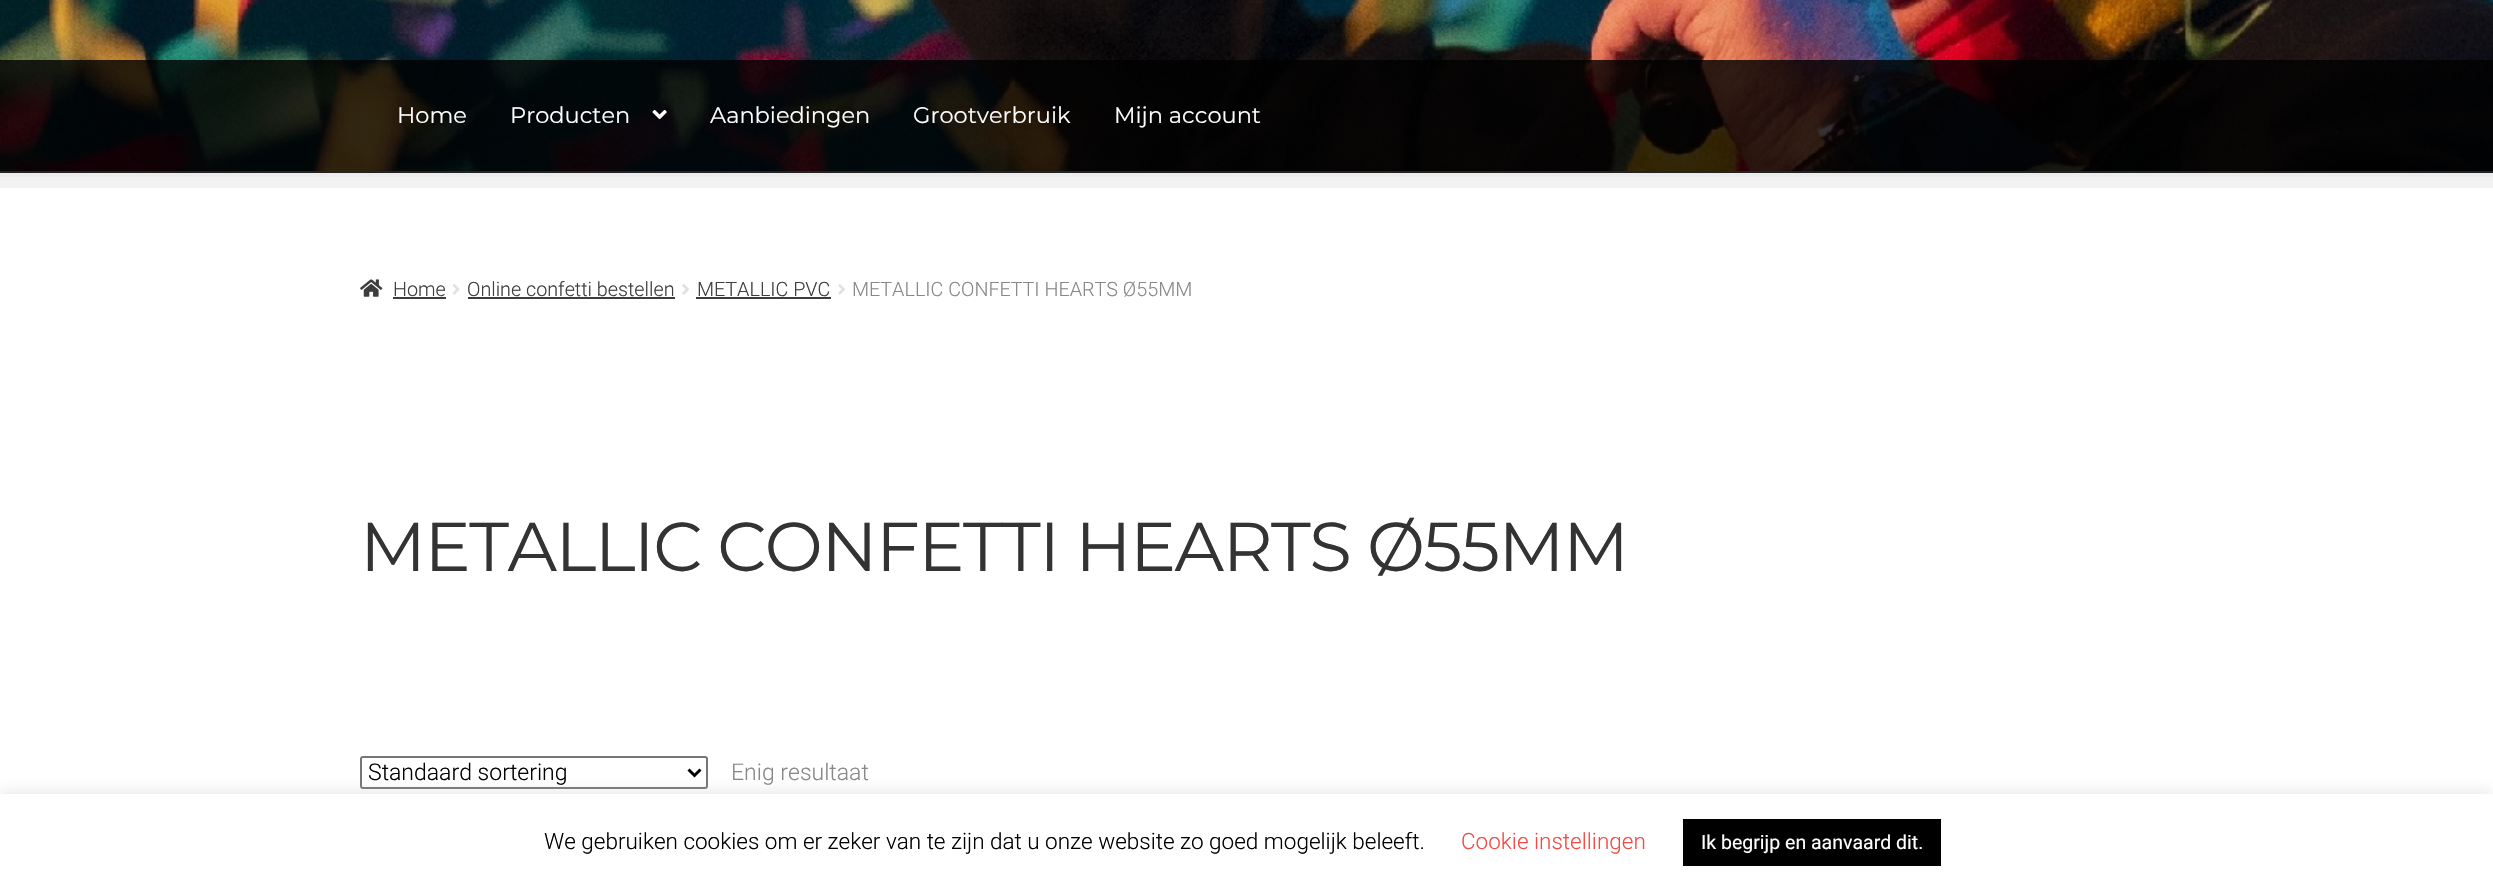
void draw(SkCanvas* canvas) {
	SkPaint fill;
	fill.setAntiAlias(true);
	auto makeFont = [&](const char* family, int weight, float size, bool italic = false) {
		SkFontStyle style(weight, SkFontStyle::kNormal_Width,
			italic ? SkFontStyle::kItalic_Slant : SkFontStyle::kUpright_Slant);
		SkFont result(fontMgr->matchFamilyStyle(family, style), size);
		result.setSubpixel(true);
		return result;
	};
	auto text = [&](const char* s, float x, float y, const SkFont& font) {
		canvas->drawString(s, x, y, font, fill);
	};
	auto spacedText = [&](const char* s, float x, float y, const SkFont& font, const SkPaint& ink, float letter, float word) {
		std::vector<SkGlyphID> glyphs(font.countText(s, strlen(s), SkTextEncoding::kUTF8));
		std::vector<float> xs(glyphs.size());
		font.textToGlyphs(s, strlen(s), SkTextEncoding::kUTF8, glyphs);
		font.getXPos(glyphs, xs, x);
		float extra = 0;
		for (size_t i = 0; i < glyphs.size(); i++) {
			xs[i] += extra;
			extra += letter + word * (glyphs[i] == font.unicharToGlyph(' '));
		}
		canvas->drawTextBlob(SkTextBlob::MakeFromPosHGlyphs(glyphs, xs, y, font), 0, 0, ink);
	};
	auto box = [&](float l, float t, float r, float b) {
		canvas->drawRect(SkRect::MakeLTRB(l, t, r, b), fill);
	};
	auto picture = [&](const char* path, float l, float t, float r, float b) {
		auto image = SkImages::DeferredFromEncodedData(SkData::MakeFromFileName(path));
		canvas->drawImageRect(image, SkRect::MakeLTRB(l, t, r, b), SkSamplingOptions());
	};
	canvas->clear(0xFFFFFFFF);
	fill.setColor(0xFFF9F9F9);
	box(0, 173, 2493, 177);
	picture("image0.png", 0, 0, 2493, 171);
	fill.setColor(0xFF242424);
	box(0, 171, 2493, 173);
	fill.setColor(0x0D000000);
	canvas->drawPath(SkPathBuilder().moveTo(-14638, 171).lineTo(-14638, 188).lineTo(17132, 188).lineTo(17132, 77).lineTo(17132, 171).close().detach(), fill);
	fill.setColor(0xCC000000);
	box(0, 60, 2493, 171);
	picture("image1.png", 652, 110, 667, 120);
	picture("image2.png", 360, 279, 383, 297);
	fill.setColor(0xFF3D3D3D);
	box(393, 297, 446, 299);
	picture("image3.png", 452, 284, 460, 295);
	box(468, 297, 675, 299);
	picture("image4.png", 682, 284, 689, 295);
	box(696, 297, 831, 299);
	picture("image4.png", 838, 284, 845, 295);
	fill.setStyle(SkPaint::kStroke_Style);
	fill.setStrokeWidth(2);
	fill.setColor(0xFF767676);
	canvas->drawRoundRect(SkRect::MakeLTRB(361, 757, 707, 788), 2, 2, fill);
	fill.setStrokeWidth(3);
	fill.setColor(0xFF000000);
	canvas->drawPath(SkPathBuilder().moveTo(688.5f, 769.5f).lineTo(694.5f, 775.5f).lineTo(700.5f, 769.5f).detach(), fill);
	fill.setStyle(SkPaint::kFill_Style);
	fill.setColor(0x4DACABAB);
	fill.setMaskFilter(SkMaskFilter::MakeBlur(kNormal_SkBlurStyle, 7.5f));
	canvas->drawRect(SkRect::MakeLTRB(0, 792, 2493, 890), fill);
	fill.setMaskFilter(nullptr);
	fill.setColor(0xFFFFFFFF);
	box(0, 794, 2493, 890);
	fill.setColor(0xFF000000);
	box(1683, 819, 1941, 866);
	auto font1 = makeFont("Montserrat", 400, 22.5f);
	fill.setColor(0xFFFFFFFF);
	text("Home", 397, 123, font1);
	text("Producten", 510, 123, font1);
	text("Aanbiedingen", 710, 123, font1);
	text("Grootverbruik", 913, 123, font1);
	text("Mijn account", 1114, 123, font1);
	auto font2 = makeFont("Roboto", 300, 19.75f);
	fill.setColor(0xFF3D3D3D);
	text("Home", 393, 296, font2);
	text("Online confetti bestellen", 467, 296, font2);
	text("METALLIC PVC", 697, 296, font2);
	fill.setColor(0xFF888888);
	text("METALLIC CONFETTI HEARTS Ø55MM", 852, 296, font2);
	auto font3 = makeFont("Montserrat", 400, 69.1f);
	fill.setColor(0xFF333333);
	spacedText("METALLIC CONFETTI HEARTS Ø55MM", 360, 571, font3, fill, -1.5f, 0);
	auto font4 = makeFont("Roboto", 300, 23);
	fill.setColor(0xFF000000);
	text("Standaard sortering", 368, 780, font4);
	fill.setColor(0xFF888888);
	text("Enig resultaat", 731, 780, font4);
	auto font5 = makeFont("Roboto", 300, 22.5f);
	fill.setColor(0xFF000000);
	text("We gebruiken cookies om er zeker van te zijn dat u onze website zo goed mogelijk beleeft.", 544, 849, font5);
	fill.setColor(0xFFEF4C47);
	text("Cookie instellingen", 1461, 849, font5);
	auto font6 = makeFont("Roboto", 400, 19.5f);
	fill.setColor(0xFFFFFFFF);
	text("Ik begrijp en aanvaard dit.", 1701, 849, font6);
}
